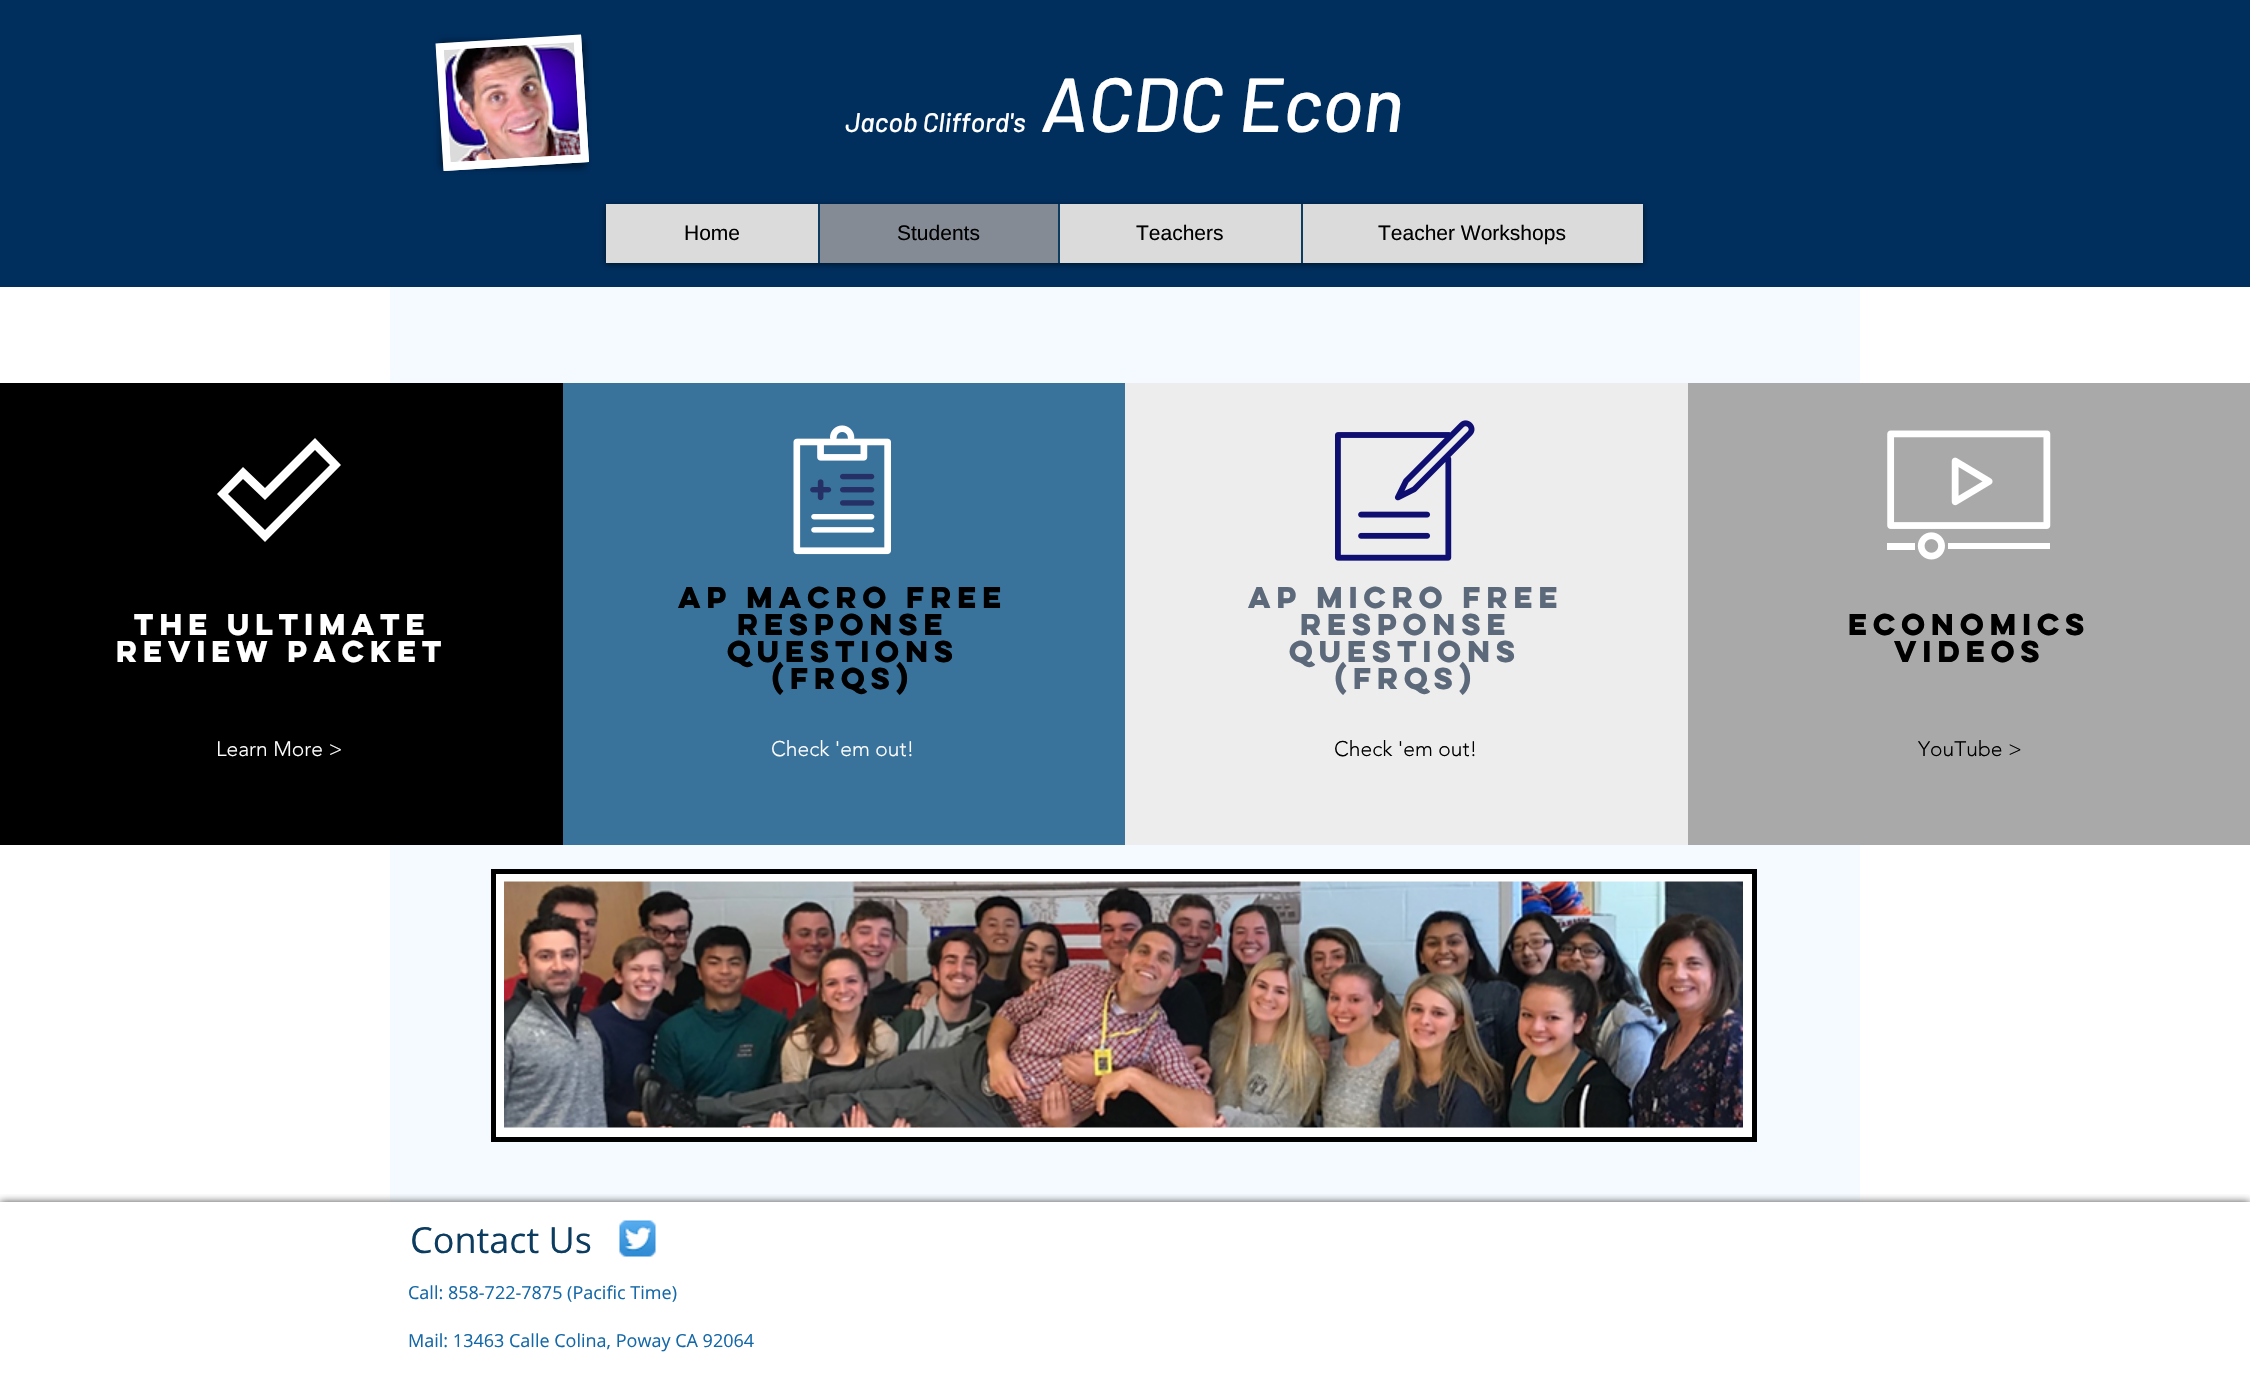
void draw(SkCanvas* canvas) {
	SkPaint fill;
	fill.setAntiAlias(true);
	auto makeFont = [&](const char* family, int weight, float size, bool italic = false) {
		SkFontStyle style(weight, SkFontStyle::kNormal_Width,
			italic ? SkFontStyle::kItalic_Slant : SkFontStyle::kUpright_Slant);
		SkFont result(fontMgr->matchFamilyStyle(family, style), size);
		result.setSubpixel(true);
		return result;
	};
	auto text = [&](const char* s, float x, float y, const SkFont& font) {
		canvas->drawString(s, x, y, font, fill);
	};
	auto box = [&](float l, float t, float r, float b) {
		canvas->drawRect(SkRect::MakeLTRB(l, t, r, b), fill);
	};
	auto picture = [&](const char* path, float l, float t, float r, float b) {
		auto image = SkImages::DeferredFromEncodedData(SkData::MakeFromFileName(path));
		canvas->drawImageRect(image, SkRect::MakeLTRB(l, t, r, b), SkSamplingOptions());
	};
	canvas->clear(0xFFFFFFFF);
	fill.setColor(0xFF002E5D);
	box(0, 0, 2250, 287);
	fill.setColor(0x66000000);
	fill.setMaskFilter(SkMaskFilter::MakeBlur(kNormal_SkBlurStyle, 3));
	canvas->drawRect(SkRect::MakeLTRB(440, 41, 585, 168), fill);
	fill.setMaskFilter(nullptr);
	fill.setColor(0xFFFFFFFF);
	canvas->drawPath(SkPathBuilder().moveTo(436, 44).lineTo(581, 35).lineTo(589, 162).lineTo(444, 171).close().detach(), fill);
	fill.setStyle(SkPaint::kStroke_Style);
	fill.setStrokeWidth(7.5f);
	canvas->drawPath(SkPathBuilder().moveTo(439.5f, 47).lineTo(577.5f, 38.5f).lineTo(585, 158.5f).lineTo(447, 167).close().detach(), fill);
	picture("image0.png", 444, 42, 581, 162);
	fill.setStyle(SkPaint::kFill_Style);
	fill.setColor(0x99000000);
	fill.setMaskFilter(SkMaskFilter::MakeBlur(kNormal_SkBlurStyle, 3));
	canvas->drawRect(SkRect::MakeLTRB(606, 206, 1643, 264), fill);
	fill.setMaskFilter(nullptr);
	fill.setColor(0xFFDBDBDB);
	box(606, 204, 1643, 263);
	fill.setColor(0xFF848B94);
	box(820, 204, 1058, 263);
	fill.setColor(0xFF0C3C60);
	box(818, 204, 820, 263);
	box(1058, 204, 1060, 263);
	box(1301, 204, 1303, 263);
	fill.setColor(0xFFF4FAFF);
	box(390, 287, 1860, 1202);
	fill.setColor(0xFF000000);
	box(0, 383, 563, 845);
	fill.setColor(0xFFFFFFFF);
	canvas->drawPath(SkPathBuilder().moveTo(315, 450).lineTo(330, 465).lineTo(265, 530).lineTo(228, 494).lineTo(243, 479).lineTo(265, 500).close().moveTo(315, 438).lineTo(265, 488).lineTo(243, 467).lineTo(217, 494).lineTo(265, 542).lineTo(341, 465).close().detach(), fill);
	fill.setColor(0xFF39729B);
	box(563, 383, 1125, 845);
	picture("image1.png", 793, 425, 891, 555);
	fill.setColor(0xFFEDEDED);
	box(1125, 383, 1688, 845);
	picture("image2.png", 1335, 420, 1475, 561);
	fill.setColor(0xFFA9A9A9);
	box(1688, 383, 2250, 845);
	picture("image3.png", 1887, 430, 2051, 560);
	fill.setColor(0xFFFFFFFF);
	canvas->drawRect(SkRect::MakeLTRB(493.5f, 871.5f, 1754.5f, 1139.5f), fill);
	fill.setStyle(SkPaint::kStroke_Style);
	fill.setStrokeWidth(5);
	fill.setColor(0xFF000000);
	canvas->drawRect(SkRect::MakeLTRB(493.5f, 871.5f, 1754.5f, 1139.5f), fill);
	picture("image4.png", 504, 881, 1743, 1128);
	canvas->save();
	canvas->clipRect(SkRect::MakeLTRB(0, 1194, 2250, 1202));
	fill.setStyle(SkPaint::kFill_Style);
	fill.setColor(0xB3000000);
	fill.setMaskFilter(SkMaskFilter::MakeBlur(kNormal_SkBlurStyle, 4));
	canvas->drawRect(SkRect::MakeLTRB(0, 1202, 2250, 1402), fill);
	fill.setMaskFilter(nullptr);
	canvas->restore();
	picture("image5.png", 619, 1220, 656, 1257);
	auto font1 = makeFont("Barlow", 500, 27, true);
	fill.setColor(0xFFFFFFFF);
	text("Jacob Clifford's", 845, 132, font1);
	auto font2 = makeFont("Barlow", 500, 76.5f, true);
	text("ACDC Econ", 1041, 132, font2);
	auto font3 = makeFont("Liberation Sans", 400, 21);
	fill.setColor(0xFF000000);
	text("Home", 684, 240, font3);
	text("Students", 897, 240, font3);
	text("Teachers", 1136, 240, font3);
	text("Teacher Workshops", 1378, 240, font3);
	auto font4 = makeFont("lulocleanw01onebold", 700, 27);
	fill.setColor(0xFFFFFFFF);
	text("The Ultimate", 134, 635, font4);
	text("Review Packet", 116, 662, font4);
	auto font5 = makeFont("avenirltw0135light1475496", 300, 21);
	text("Learn More >", 216, 756, font5);
	fill.setColor(0xFF000000);
	text("AP Macro FreE", 678, 608, font4);
	text("Response", 737, 635, font4);
	text("Questions", 727, 662, font4);
	text("(FRQs)", 772, 689, font4);
	fill.setColor(0xFFFFFFFF);
	text("Check 'em out!", 771, 756, font5);
	fill.setColor(0xFF5C697B);
	text("AP Micro FreE", 1248, 608, font4);
	text("Response", 1300, 635, font4);
	text("Questions", 1289, 662, font4);
	text("(FRQs)", 1335, 689, font4);
	fill.setColor(0xFF000000);
	text("Check 'em out!", 1334, 756, font5);
	text("Economics", 1848, 635, font4);
	text("Videos", 1894, 662, font4);
	text("YouTube >", 1918, 756, font5);
	auto font6 = makeFont("Open Sans", 400, 36);
	fill.setColor(0xFF0C3C60);
	text("Contact Us", 410, 1253, font6);
	auto font7 = makeFont("Open Sans", 400, 18);
	fill.setColor(0xFF1468A8);
	text("Call: 858-722-7875 (Pacific Time)", 408, 1299, font7);
	text("Mail: 13463 Calle Colina, Poway CA 92064", 408, 1347, font7);
}
